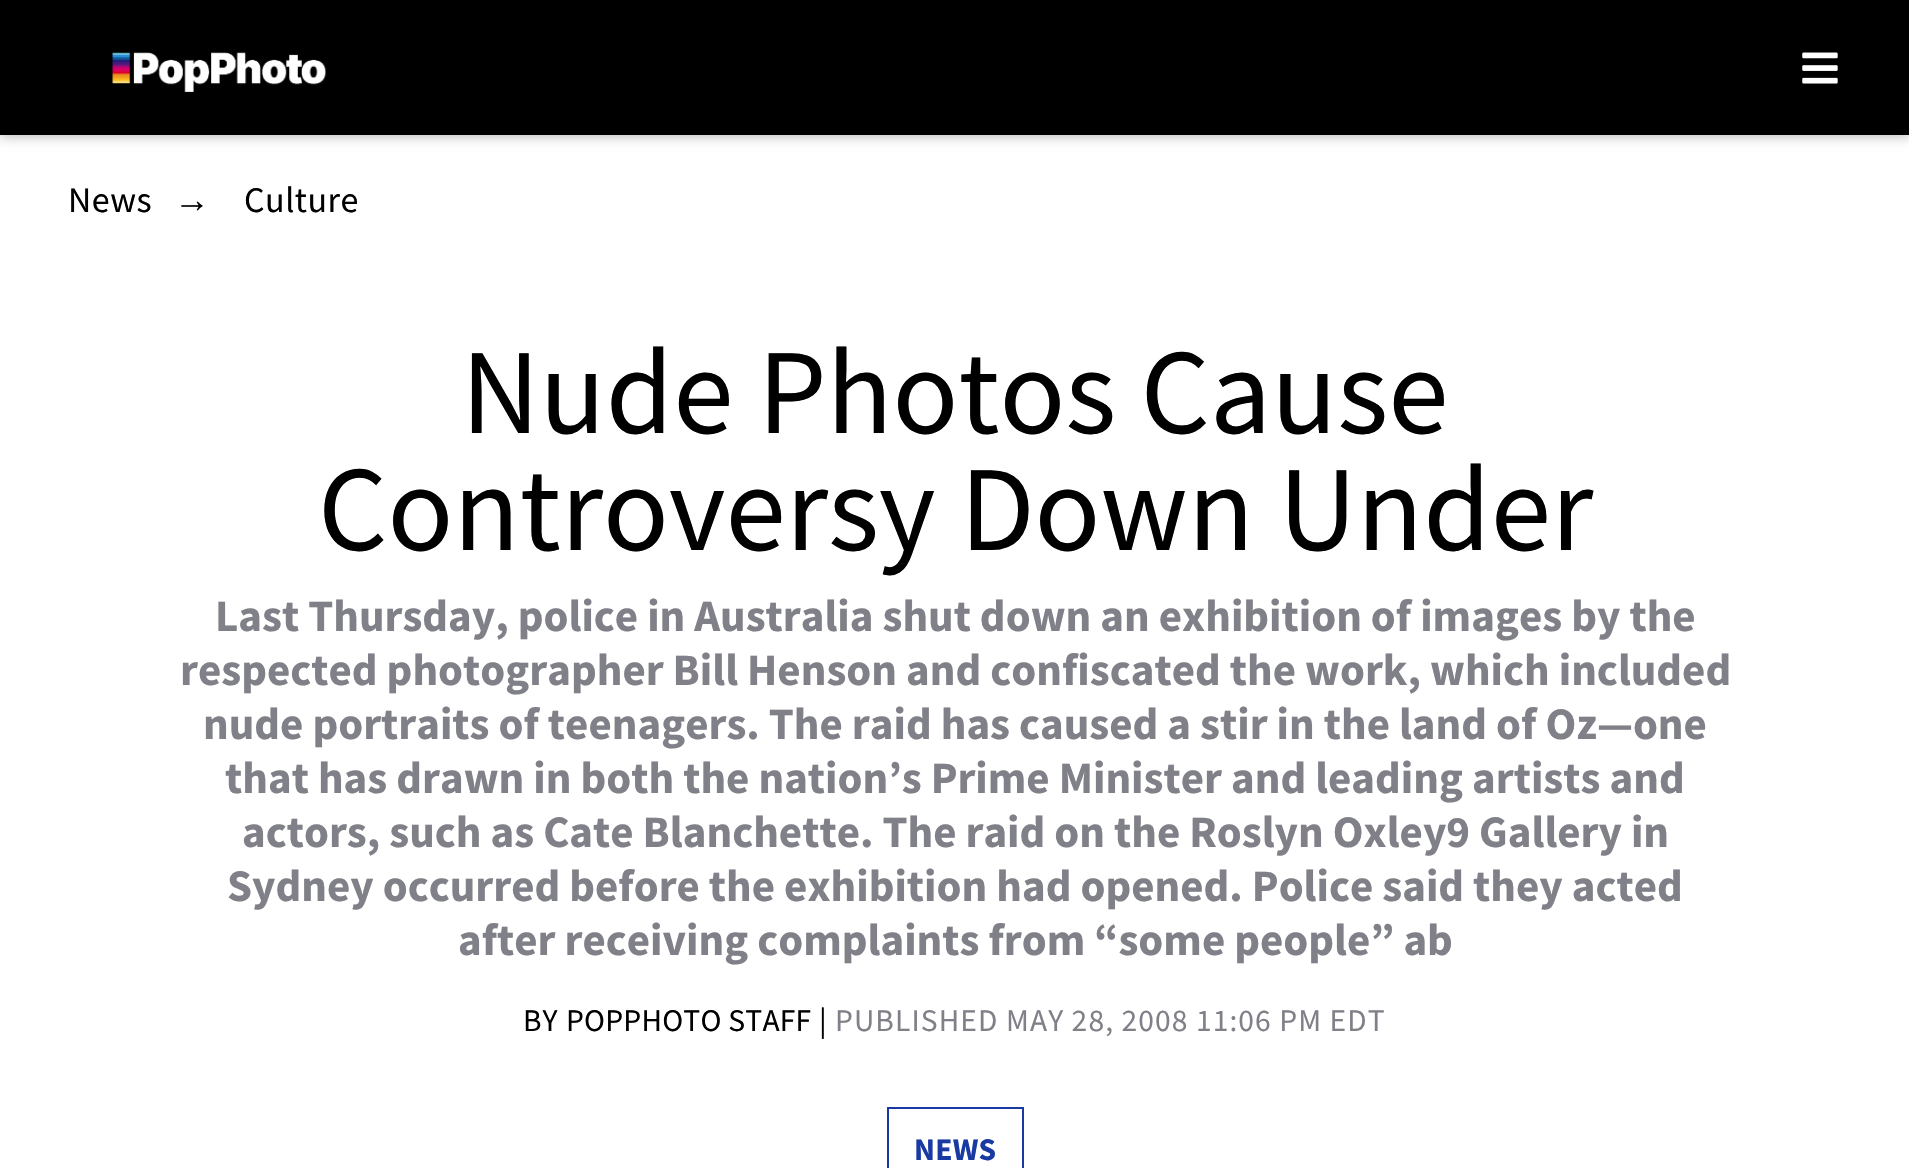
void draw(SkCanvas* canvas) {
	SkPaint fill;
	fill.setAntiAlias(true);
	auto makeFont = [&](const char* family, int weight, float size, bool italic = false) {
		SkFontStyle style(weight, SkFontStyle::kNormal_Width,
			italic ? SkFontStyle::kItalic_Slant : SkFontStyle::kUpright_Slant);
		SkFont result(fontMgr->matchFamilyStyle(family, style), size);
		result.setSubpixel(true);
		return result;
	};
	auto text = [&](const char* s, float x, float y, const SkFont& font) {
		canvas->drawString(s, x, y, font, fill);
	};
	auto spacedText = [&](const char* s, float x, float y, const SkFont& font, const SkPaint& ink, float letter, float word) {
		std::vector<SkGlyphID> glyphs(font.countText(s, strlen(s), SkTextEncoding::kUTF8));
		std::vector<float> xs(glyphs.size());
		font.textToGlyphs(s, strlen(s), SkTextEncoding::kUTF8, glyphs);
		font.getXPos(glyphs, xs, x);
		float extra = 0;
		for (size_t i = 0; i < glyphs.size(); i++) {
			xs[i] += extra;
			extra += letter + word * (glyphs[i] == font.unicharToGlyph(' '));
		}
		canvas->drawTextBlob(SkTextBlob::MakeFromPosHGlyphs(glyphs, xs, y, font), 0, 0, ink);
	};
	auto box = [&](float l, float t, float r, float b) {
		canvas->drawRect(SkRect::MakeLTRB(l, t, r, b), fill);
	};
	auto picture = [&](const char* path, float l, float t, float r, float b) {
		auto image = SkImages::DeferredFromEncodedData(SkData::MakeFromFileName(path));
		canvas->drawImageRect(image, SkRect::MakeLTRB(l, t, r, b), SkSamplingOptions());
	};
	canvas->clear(0xFFFFFFFF);
	fill.setColor(0x40000000);
	fill.setMaskFilter(SkMaskFilter::MakeBlur(kNormal_SkBlurStyle, 5.5f));
	canvas->drawRect(SkRect::MakeLTRB(0, 2, 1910, 137), fill);
	fill.setMaskFilter(nullptr);
	fill.setColor(0xFF000000);
	box(0, 0, 1909, 135);
	picture("image0.png", 112, 52, 327, 92);
	picture("image1.png", 1802, 52, 1838, 84);
	fill.setStyle(SkPaint::kStroke_Style);
	fill.setStrokeWidth(2);
	fill.setColor(0xFF193AA3);
	canvas->drawRect(SkRect::MakeLTRB(888, 1108, 1023, 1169), fill);
	auto font1 = makeFont("Source Sans Pro", 400, 36);
	fill.setStyle(SkPaint::kFill_Style);
	fill.setColor(0xFF000000);
	spacedText("News", 68, 212, font1, fill, 0.5f, 0);
	auto font2 = makeFont("Liberation Sans", 400, 36);
	text("→", 174, 212, font2);
	spacedText("Culture", 244, 212, font1, fill, 0.5f, 0);
	auto font3 = makeFont("Source Sans Pro", 400, 121.5f);
	text("Nude Photos Cause", 461, 433, font3);
	text("Controversy Down Under", 318, 550, font3);
	auto font4 = makeFont("Source Sans Pro", 700, 45);
	fill.setColor(0xFF808088);
	text("Last Thursday, police in Australia shut down an exhibition of images by the", 215, 631, font4);
	text("respected photographer Bill Henson and confiscated the work, which included", 180, 685, font4);
	text("nude portraits of teenagers. The raid has caused a stir in the land of Oz—one", 203, 739, font4);
	text("that has drawn in both the nation’s Prime Minister and leading artists and", 225, 793, font4);
	text("actors, such as Cate Blanchette. The raid on the Roslyn Oxley9 Gallery in", 242, 847, font4);
	text("Sydney occurred before the exhibition had opened. Police said they acted", 227, 901, font4);
	text("after receiving complaints from “some people” ab", 458, 955, font4);
	auto font5 = makeFont("Source Sans Pro", 400, 31.5f);
	fill.setColor(0xFF000000);
	spacedText("BY", 523, 1031, font5, fill, 1.1f, 0);
	spacedText("POPPHOTO STAFF", 566, 1031, font5, fill, 0.25f, 0);
	spacedText("|", 819, 1031, font5, fill, 1.1f, 0);
	fill.setColor(0xFF808088);
	spacedText("PUBLISHED MAY 28, 2008 11:06 PM EDT", 835, 1031, font5, fill, 1.1f, 0);
	auto font6 = makeFont("Source Sans Pro", 700, 31.5f);
	fill.setColor(0xFF193AA3);
	spacedText("NEWS", 914, 1160, font6, fill, 0.25f, 0);
}
